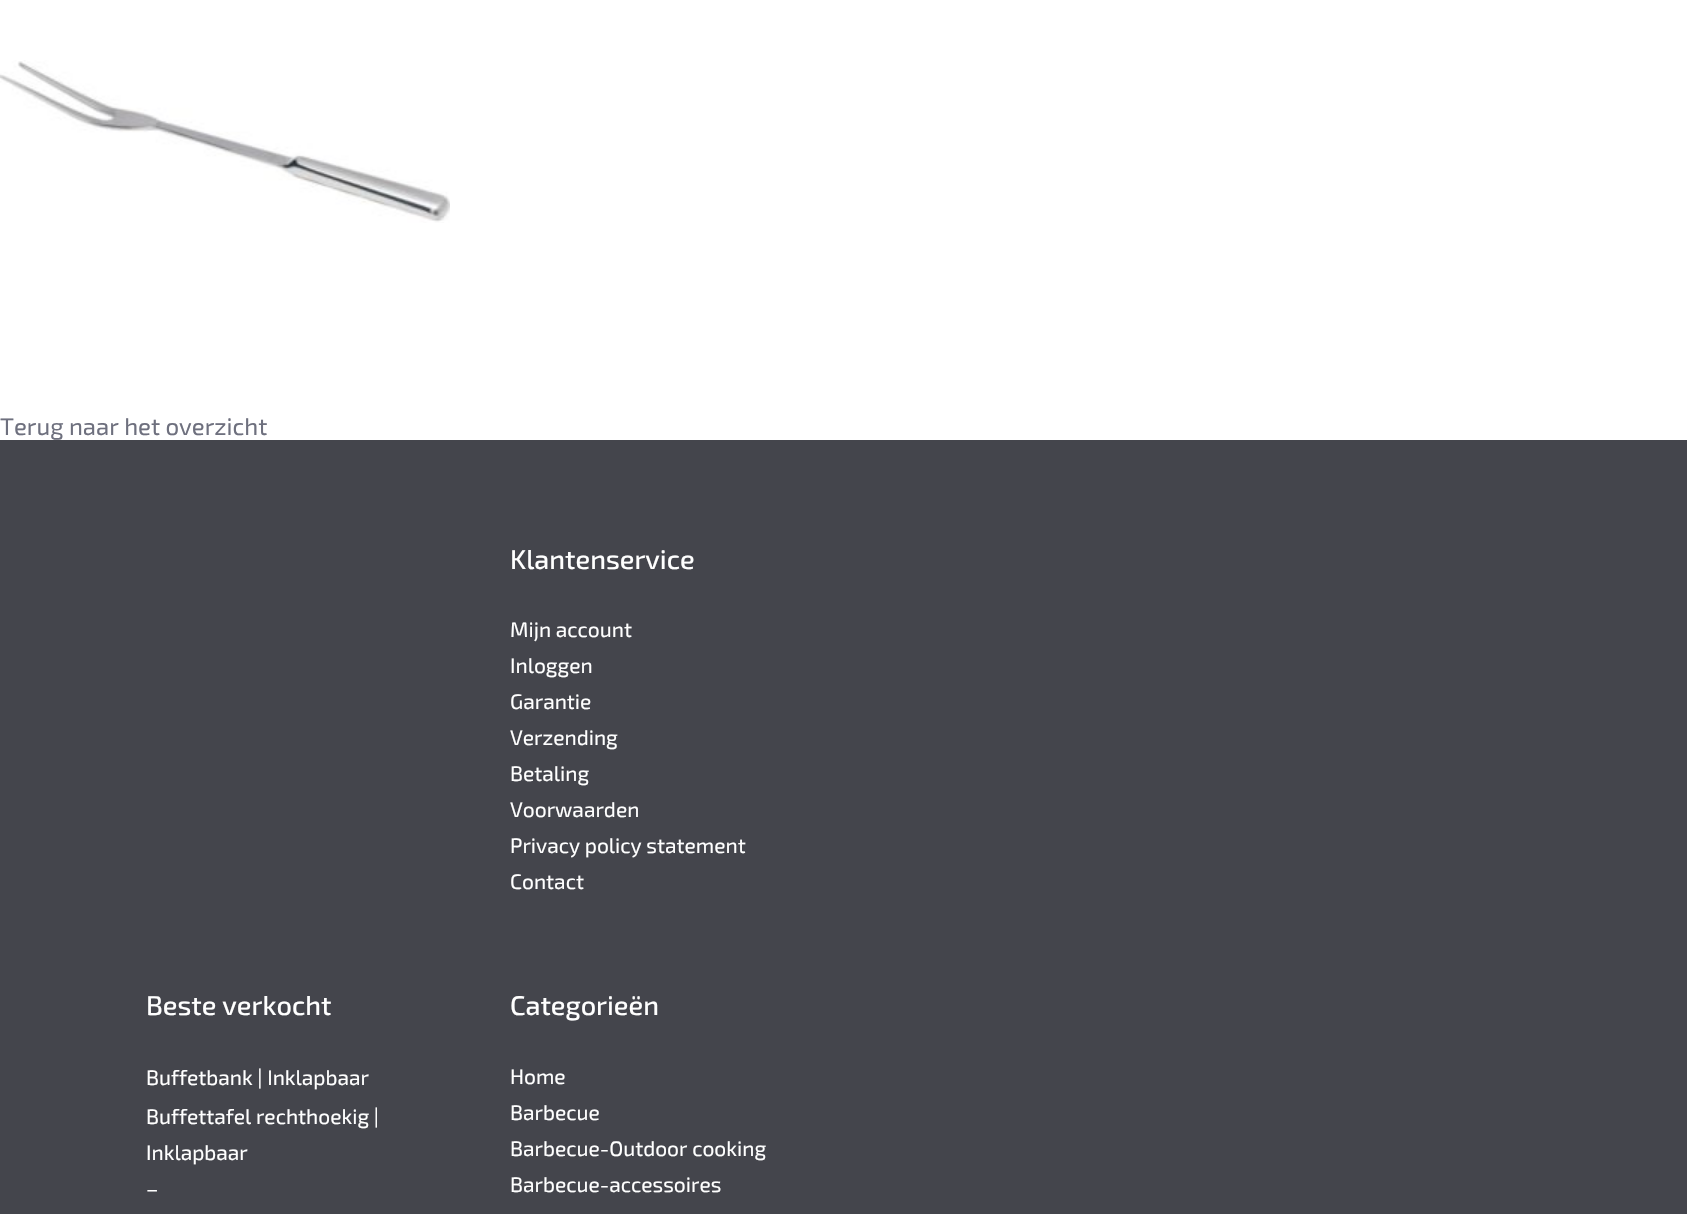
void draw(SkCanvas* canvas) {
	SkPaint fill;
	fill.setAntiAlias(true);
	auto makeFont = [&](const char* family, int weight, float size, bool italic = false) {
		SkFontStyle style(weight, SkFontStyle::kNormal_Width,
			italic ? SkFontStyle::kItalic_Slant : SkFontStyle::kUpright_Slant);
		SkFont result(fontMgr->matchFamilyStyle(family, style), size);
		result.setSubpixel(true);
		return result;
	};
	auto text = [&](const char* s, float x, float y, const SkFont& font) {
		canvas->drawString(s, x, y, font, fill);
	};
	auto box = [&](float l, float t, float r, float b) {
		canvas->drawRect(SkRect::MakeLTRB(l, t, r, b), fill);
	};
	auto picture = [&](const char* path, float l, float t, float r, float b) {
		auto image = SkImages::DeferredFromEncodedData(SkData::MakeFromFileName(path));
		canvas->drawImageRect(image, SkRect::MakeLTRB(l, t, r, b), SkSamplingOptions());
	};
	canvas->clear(0xFFFFFFFF);
	picture("image0.png", 0, 60, 450, 223);
	fill.setColor(0xFF44454C);
	box(0, 440, 1687, 1214);
	auto font1 = makeFont("Exo 2", 400, 24);
	fill.setColor(0xFF6E707E);
	text("Terug naar het overzicht", 0, 435, font1);
	auto font2 = makeFont("Exo 2", 500, 27);
	fill.setColor(0xFFFFFFFF);
	text("Klantenservice", 510, 569, font2);
	auto font3 = makeFont("Exo 2", 400, 21);
	text("Mijn account", 510, 637, font3);
	text("Inloggen", 510, 673, font3);
	text("Garantie", 510, 709, font3);
	text("Verzending", 510, 745, font3);
	text("Betaling", 510, 781, font3);
	text("Voorwaarden", 510, 817, font3);
	text("Privacy policy statement", 510, 853, font3);
	text("Contact", 510, 889, font3);
	text("Beste verkocht", 146, 1015, font2);
	text("Buffetbank | Inklapbaar", 146, 1085, font3);
	text("Buffettafel rechthoekig |", 146, 1124, font3);
	text("Inklapbaar", 146, 1160, font3);
	text("–", 146, 1196, font3);
	text("Categorieën", 510, 1015, font2);
	text("Home", 510, 1084, font3);
	text("Barbecue", 510, 1120, font3);
	text("Barbecue-Outdoor cooking", 510, 1156, font3);
	text("Barbecue-accessoires", 510, 1192, font3);
}
